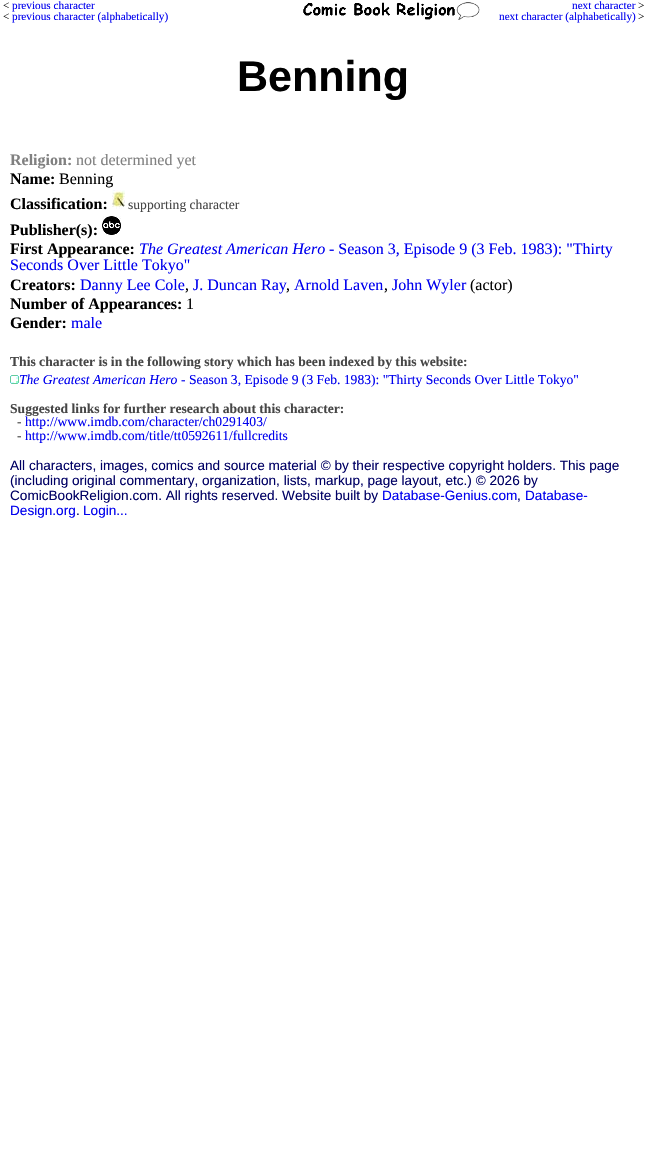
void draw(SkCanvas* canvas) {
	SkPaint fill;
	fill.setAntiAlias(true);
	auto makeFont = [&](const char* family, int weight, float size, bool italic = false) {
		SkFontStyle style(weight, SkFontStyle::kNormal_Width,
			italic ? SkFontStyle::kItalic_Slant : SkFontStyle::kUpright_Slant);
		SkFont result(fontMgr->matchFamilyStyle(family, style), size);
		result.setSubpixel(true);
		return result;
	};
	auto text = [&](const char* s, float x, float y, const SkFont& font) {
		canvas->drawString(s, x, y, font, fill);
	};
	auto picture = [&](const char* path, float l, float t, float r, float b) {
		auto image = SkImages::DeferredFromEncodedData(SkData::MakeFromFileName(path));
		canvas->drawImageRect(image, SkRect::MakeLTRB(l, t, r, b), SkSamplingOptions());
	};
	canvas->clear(0xFFFFFFFF);
	picture("image0.png", 303, 2, 480, 20);
	picture("image1.png", 112, 190, 125, 209);
	picture("image2.png", 102, 216, 121, 235);
	picture("image3.png", 10, 375, 19, 384);
	auto font1 = makeFont("Liberation Serif", 400, 11.25f);
	fill.setColor(0xFF000000);
	text("<", 3, 9, font1);
	fill.setColor(0xFF0000EE);
	text("previous character", 12, 9, font1);
	fill.setColor(0xFF000000);
	text("<", 3, 20, font1);
	fill.setColor(0xFF0000EE);
	text("previous character (alphabetically)", 12, 20, font1);
	text("next character", 572, 9, font1);
	fill.setColor(0xFF000000);
	text(">", 638, 9, font1);
	fill.setColor(0xFF0000EE);
	text("next character (alphabetically)", 499, 20, font1);
	fill.setColor(0xFF000000);
	text(">", 638, 20, font1);
	auto font2 = makeFont("Liberation Sans", 700, 43);
	text("Benning", 237, 91, font2);
	auto font3 = makeFont("Liberation Serif", 700, 16);
	fill.setColor(0xFF808080);
	text("Religion:", 10, 165, font3);
	auto font4 = makeFont("Liberation Serif", 400, 16);
	text("not determined yet", 76, 165, font4);
	fill.setColor(0xFF000000);
	text("Name:", 10, 184, font3);
	text("Benning", 59, 184, font4);
	text("Classification:", 10, 209, font3);
	auto font5 = makeFont("Liberation Serif", 400, 13.6f);
	fill.setColor(0xFF464646);
	text("supporting character", 128, 209, font5);
	fill.setColor(0xFF000000);
	text("Publisher(s):", 10, 235, font3);
	text("First Appearance:", 10, 254, font3);
	auto font6 = makeFont("Liberation Serif", 400, 16, true);
	fill.setColor(0xFF0000EE);
	text("The Greatest American Hero", 139, 254, font6);
	text("- Season 3, Episode 9 (3 Feb. 1983): \"Thirty", 329, 254, font4);
	text("Seconds Over Little Tokyo\"", 10, 270, font4);
	fill.setColor(0xFF000000);
	text("Creators:", 10, 290, font3);
	fill.setColor(0xFF0000EE);
	text("Danny Lee Cole", 80, 290, font4);
	fill.setColor(0xFF000000);
	text(",", 185, 290, font4);
	fill.setColor(0xFF0000EE);
	text("J. Duncan Ray", 193, 290, font4);
	fill.setColor(0xFF000000);
	text(",", 286, 290, font4);
	fill.setColor(0xFF0000EE);
	text("Arnold Laven", 294, 290, font4);
	fill.setColor(0xFF000000);
	text(",", 384, 290, font4);
	fill.setColor(0xFF0000EE);
	text("John Wyler", 392, 290, font4);
	fill.setColor(0xFF000000);
	text("(actor)", 470, 290, font4);
	text("Number of Appearances:", 10, 309, font3);
	text("1", 186, 309, font4);
	text("Gender:", 10, 328, font3);
	fill.setColor(0xFF0000EE);
	text("male", 71, 328, font4);
	auto font7 = makeFont("Liberation Serif", 700, 13.6f);
	fill.setColor(0xFF464646);
	text("This character is in the following story which has been indexed by this website:", 10, 366, font7);
	auto font8 = makeFont("Liberation Serif", 400, 13.6f, true);
	fill.setColor(0xFF0000EE);
	text("The Greatest American Hero", 19, 384, font8);
	text("- Season 3, Episode 9 (3 Feb. 1983): \"Thirty Seconds Over Little Tokyo\"", 181, 384, font5);
	fill.setColor(0xFF464646);
	text("Suggested links for further research about this character:", 10, 413, font7);
	text("-", 17, 426, font5);
	fill.setColor(0xFF0000EE);
	text("http://www.imdb.com/character/ch0291403/", 25, 426, font5);
	fill.setColor(0xFF464646);
	text("-", 17, 440, font5);
	fill.setColor(0xFF0000EE);
	text("http://www.imdb.com/title/tt0592611/fullcredits", 25, 440, font5);
	auto font9 = makeFont("Liberation Sans", 400, 13.6f);
	fill.setColor(0xFF000064);
	text("All characters, images, comics and source material © by their respective copyright holders. This page", 10, 470, font9);
	text("(including original commentary, organization, lists, markup, page layout, etc.) © 2026 by", 10, 485, font9);
	text("ComicBookReligion.com. All rights reserved. Website built by", 10, 500, font9);
	fill.setColor(0xFF0000EE);
	text("Database-Genius.com", 382, 500, font9);
	fill.setColor(0xFF000064);
	text(",", 517, 500, font9);
	fill.setColor(0xFF0000EE);
	text("Database-", 525, 500, font9);
	text("Design.org", 10, 515, font9);
	fill.setColor(0xFF000064);
	text(".", 76, 515, font9);
	fill.setColor(0xFF0000EE);
	text("Login...", 83, 515, font9);
}
